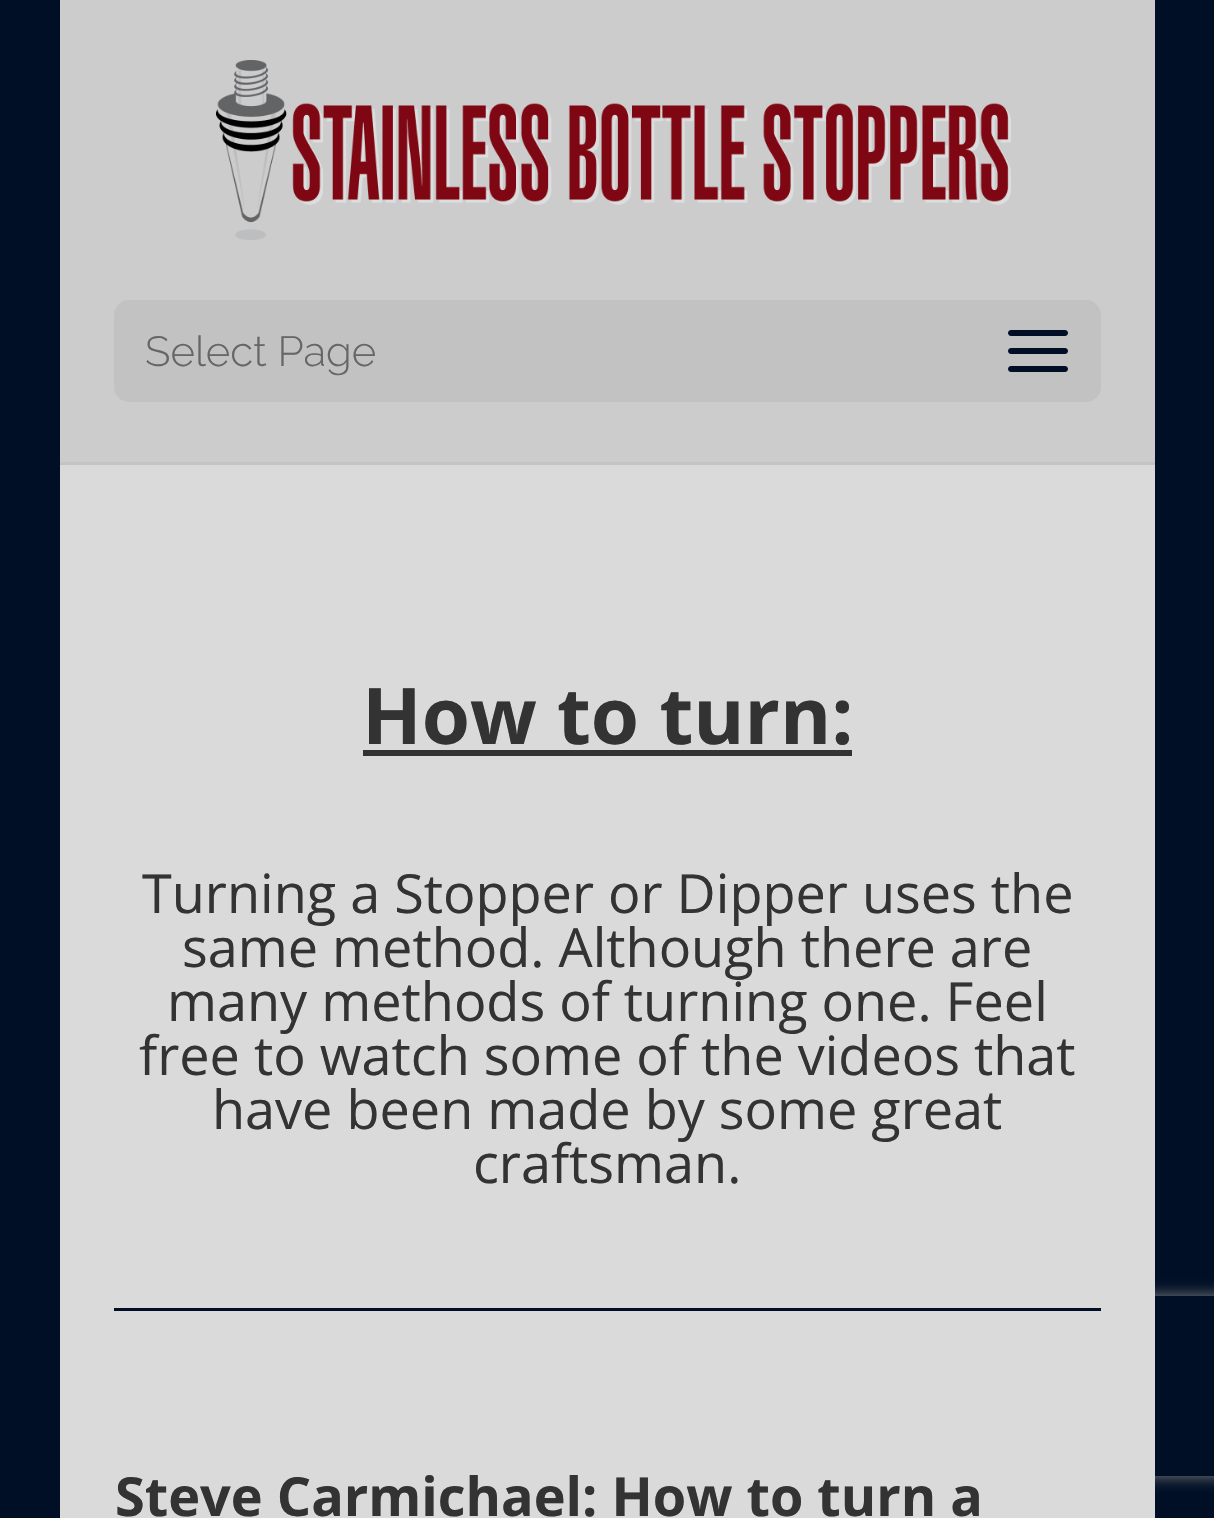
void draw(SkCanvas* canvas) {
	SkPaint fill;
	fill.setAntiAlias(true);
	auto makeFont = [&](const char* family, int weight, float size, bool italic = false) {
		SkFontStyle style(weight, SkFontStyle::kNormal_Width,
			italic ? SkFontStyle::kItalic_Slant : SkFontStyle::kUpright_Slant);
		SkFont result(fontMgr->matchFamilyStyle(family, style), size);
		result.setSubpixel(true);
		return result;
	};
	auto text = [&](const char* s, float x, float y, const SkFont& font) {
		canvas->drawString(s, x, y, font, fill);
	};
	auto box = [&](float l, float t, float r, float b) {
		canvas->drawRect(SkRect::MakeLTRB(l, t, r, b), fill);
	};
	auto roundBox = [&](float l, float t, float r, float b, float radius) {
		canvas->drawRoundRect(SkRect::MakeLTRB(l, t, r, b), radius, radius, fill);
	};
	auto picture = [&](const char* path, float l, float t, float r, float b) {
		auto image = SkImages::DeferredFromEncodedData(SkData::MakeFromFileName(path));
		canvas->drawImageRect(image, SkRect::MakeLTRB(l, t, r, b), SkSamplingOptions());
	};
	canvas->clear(0xFF000F26);
	fill.setColor(0xFFC4C4C4);
	box(60, 462, 1155, 465);
	fill.setColor(0xFFCCCCCC);
	box(60, 0, 1155, 462);
	picture("image0.png", 216, 60, 1011, 240);
	fill.setColor(0xFFC2C2C2);
	roundBox(114, 300, 1101, 402, 15);
	picture("image1.png", 1008, 330, 1068, 372);
	canvas->save();
	canvas->clipPath(SkPathBuilder(SkPathFillType::kEvenOdd).moveTo(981, 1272).lineTo(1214, 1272).lineTo(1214, 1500).lineTo(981, 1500).close().moveTo(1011, 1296).lineTo(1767, 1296).cubicTo(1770.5f, 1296, 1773, 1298.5f, 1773, 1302).lineTo(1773, 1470).cubicTo(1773, 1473.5f, 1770.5f, 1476, 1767, 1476).lineTo(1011, 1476).cubicTo(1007.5f, 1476, 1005, 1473.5f, 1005, 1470).lineTo(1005, 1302).cubicTo(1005, 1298.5f, 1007.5f, 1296, 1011, 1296).close().detach(), true);
	fill.setColor(0xFF808080);
	fill.setMaskFilter(SkMaskFilter::MakeBlur(kNormal_SkBlurStyle, 7.5f));
	canvas->drawRoundRect(SkRect::MakeLTRB(1005, 1296, 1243, 1476), 6, 6, fill);
	fill.setMaskFilter(nullptr);
	canvas->restore();
	fill.setColor(0xFFDADADA);
	box(60, 465, 1155, 1518);
	fill.setColor(0xFF333333);
	box(363, 750, 852, 756);
	fill.setColor(0xFF000F26);
	box(114, 1308, 1101, 1311);
	auto font1 = makeFont("Raleway", 300, 42);
	fill.setColor(0xFF666666);
	text("Select Page", 145, 366, font1);
	auto font2 = makeFont("Open Sans", 700, 78);
	fill.setColor(0xFF333333);
	text("How to turn:", 362, 744, font2);
	auto font3 = makeFont("Open Sans", 400, 54);
	text("Turning a Stopper or Dipper uses the", 142, 913, font3);
	text("same method. Although there are", 182, 967, font3);
	text("many methods of turning one. Feel", 167, 1021, font3);
	text("free to watch some of the videos that", 139, 1075, font3);
	text("have been made by some great", 212, 1129, font3);
	text("craftsman.", 473, 1183, font3);
	auto font4 = makeFont("Open Sans", 700, 54);
	text("Steve Carmichael: How to turn a", 115, 1516, font4);
}
